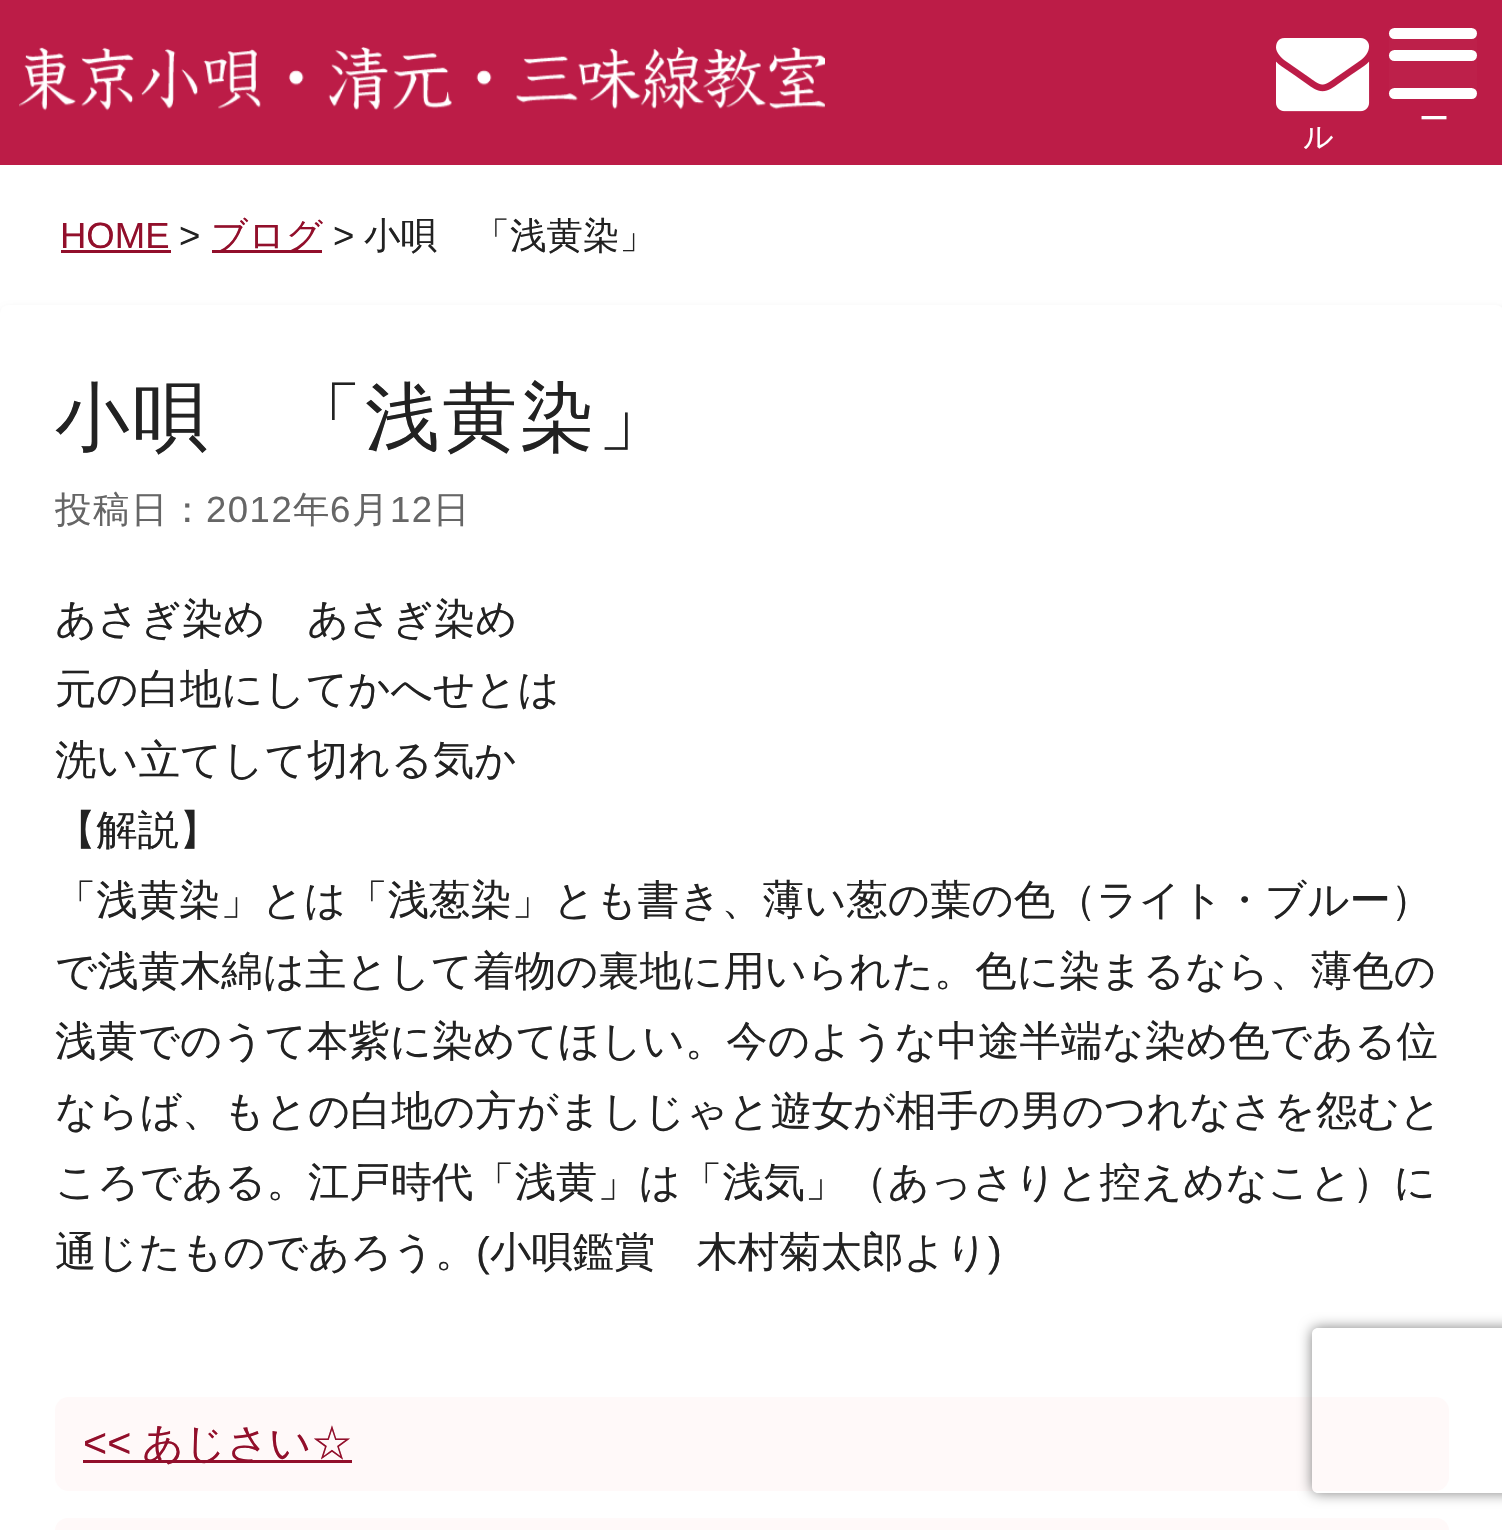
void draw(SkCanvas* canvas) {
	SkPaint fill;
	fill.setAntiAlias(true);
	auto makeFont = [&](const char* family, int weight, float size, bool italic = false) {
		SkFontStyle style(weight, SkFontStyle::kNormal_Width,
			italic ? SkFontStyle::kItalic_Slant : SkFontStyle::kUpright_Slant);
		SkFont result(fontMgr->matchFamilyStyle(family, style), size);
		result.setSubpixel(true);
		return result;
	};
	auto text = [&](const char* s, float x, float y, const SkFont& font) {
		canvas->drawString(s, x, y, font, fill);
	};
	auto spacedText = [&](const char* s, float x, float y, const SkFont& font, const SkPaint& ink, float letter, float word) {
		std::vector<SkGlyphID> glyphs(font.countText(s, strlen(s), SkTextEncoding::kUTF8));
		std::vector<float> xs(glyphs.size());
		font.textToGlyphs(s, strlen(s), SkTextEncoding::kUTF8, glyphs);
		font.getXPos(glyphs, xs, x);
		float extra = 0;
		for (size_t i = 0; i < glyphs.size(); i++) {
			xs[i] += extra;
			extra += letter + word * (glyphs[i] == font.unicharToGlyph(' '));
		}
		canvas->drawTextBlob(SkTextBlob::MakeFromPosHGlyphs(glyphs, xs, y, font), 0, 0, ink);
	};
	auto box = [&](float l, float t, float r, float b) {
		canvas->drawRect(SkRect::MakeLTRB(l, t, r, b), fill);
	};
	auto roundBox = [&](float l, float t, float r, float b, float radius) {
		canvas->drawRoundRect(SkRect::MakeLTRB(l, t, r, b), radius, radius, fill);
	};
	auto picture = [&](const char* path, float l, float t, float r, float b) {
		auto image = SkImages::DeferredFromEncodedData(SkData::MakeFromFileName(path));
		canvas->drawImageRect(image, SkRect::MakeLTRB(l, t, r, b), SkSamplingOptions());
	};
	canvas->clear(0xFFFFFFFF);
	fill.setColor(0xFFBC1C47);
	box(0, 0, 1502, 165);
	picture("image0.png", 19, 47, 825, 111);
	fill.setColor(0xFFBD204A);
	box(1389, 28, 1477, 99);
	fill.setColor(0xFFFFFFFF);
	roundBox(1389, 28, 1477, 39, 5.5f);
	roundBox(1389, 50, 1477, 61, 5.5f);
	roundBox(1389, 88, 1477, 99, 5.5f);
	picture("image1.png", 1276, 38, 1370, 112);
	fill.setColor(0xFF920F2B);
	box(61, 250, 171, 253);
	box(212, 250, 322, 253);
	fill.setColor(0x1A000000);
	fill.setMaskFilter(SkMaskFilter::MakeBlur(kNormal_SkBlurStyle, 3));
	canvas->drawRoundRect(SkRect::MakeLTRB(0, 308, 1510, 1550), 11, 11, fill);
	fill.setMaskFilter(nullptr);
	fill.setColor(0xFFFFFFFF);
	roundBox(0, 305, 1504, 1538, 8);
	fill.setColor(0xFFFFF9F9);
	roundBox(55, 1397, 1449, 1491, 14);
	fill.setColor(0xFF920F2B);
	box(83, 1460, 352, 1463);
	fill.setColor(0xFFFFF9F9);
	roundBox(55, 1518, 1449, 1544, 14);
	canvas->save();
	canvas->clipPath(SkPathBuilder(SkPathFillType::kEvenOdd).moveTo(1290, 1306).lineTo(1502, 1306).lineTo(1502, 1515).lineTo(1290, 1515).close().moveTo(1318, 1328).lineTo(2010, 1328).cubicTo(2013.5f, 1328, 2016, 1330.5f, 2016, 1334).lineTo(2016, 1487).cubicTo(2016, 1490.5f, 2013.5f, 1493, 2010, 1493).lineTo(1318, 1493).cubicTo(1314.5f, 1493, 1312, 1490.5f, 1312, 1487).lineTo(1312, 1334).cubicTo(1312, 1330.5f, 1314.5f, 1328, 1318, 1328).close().detach(), true);
	fill.setColor(0xFF808080);
	fill.setMaskFilter(SkMaskFilter::MakeBlur(kNormal_SkBlurStyle, 7));
	canvas->drawRoundRect(SkRect::MakeLTRB(1312, 1328, 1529, 1493), 6, 6, fill);
	fill.setMaskFilter(nullptr);
	canvas->restore();
	auto font1 = makeFont("WenQuanYi Zen Hei", 500, 30);
	fill.setColor(0xFFFFFFFF);
	spacedText("ー", 1419, 129, font1, fill, -8, 0);
	text("ル", 1303, 147, font1);
	auto font2 = makeFont("Liberation Sans", 400, 36.5f);
	fill.setColor(0xFF920F2B);
	text("HOME", 60, 248, font2);
	fill.setColor(0xFF222222);
	text(">", 179, 248, font2);
	auto font3 = makeFont("WenQuanYi Zen Hei", 500, 36.5f);
	fill.setColor(0xFF920F2B);
	text("ブログ", 211, 248, font3);
	fill.setColor(0xFF222222);
	text(">", 333, 248, font2);
	text("小唄　「浅黄染」", 364, 248, font3);
	auto font4 = makeFont("WenQuanYi Zen Hei", 500, 74.75f);
	spacedText("小唄　「浅黄染」", 55, 443, font4, fill, 2.75f, 0);
	fill.setColor(0xFF666666);
	spacedText("投稿日：", 55, 522, font3, fill, 1.5f, 0);
	spacedText("2012", 206, 522, font2, fill, 1.5f, 0);
	spacedText("年", 293, 522, font3, fill, 1.5f, 0);
	spacedText("6", 330, 522, font2, fill, 1.5f, 0);
	spacedText("月", 352, 522, font3, fill, 1.5f, 0);
	spacedText("12", 390, 522, font2, fill, 1.5f, 0);
	spacedText("日", 433, 522, font3, fill, 1.5f, 0);
	auto font5 = makeFont("WenQuanYi Zen Hei", 500, 41.35f);
	fill.setColor(0xFF222222);
	text("あさぎ染め　あさぎ染め", 55, 633, font5);
	text("元の白地にしてかへせとは", 55, 703, font5);
	text("洗い立てして切れる気か", 55, 774, font5);
	text("【解説】", 55, 844, font5);
	text("「浅黄染」とは「浅葱染」とも書き、薄い葱の葉の色（ライト・ブルー）", 55, 914, font5);
	text("で浅黄木綿は主として着物の裏地に用いられた。色に染まるなら、薄色の", 55, 985, font5);
	text("浅黄でのうて本紫に染めてほしい。今のような中途半端な染め色である位", 55, 1055, font5);
	text("ならば、もとの白地の方がましじゃと遊女が相手の男のつれなさを怨むと", 55, 1125, font5);
	text("ころである。江戸時代「浅黄」は「浅気」（あっさりと控えめなこと）に", 55, 1196, font5);
	text("通じたものであろう。", 55, 1266, font5);
	auto font6 = makeFont("Liberation Sans", 400, 41.35f);
	text("(", 476, 1266, font6);
	text("小唄鑑賞　木村菊太郎より", 490, 1266, font5);
	text(")", 988, 1266, font6);
	fill.setColor(0xFF920F2B);
	text("<<", 83, 1457, font6);
	text("あじさい☆", 142, 1457, font5);
}
